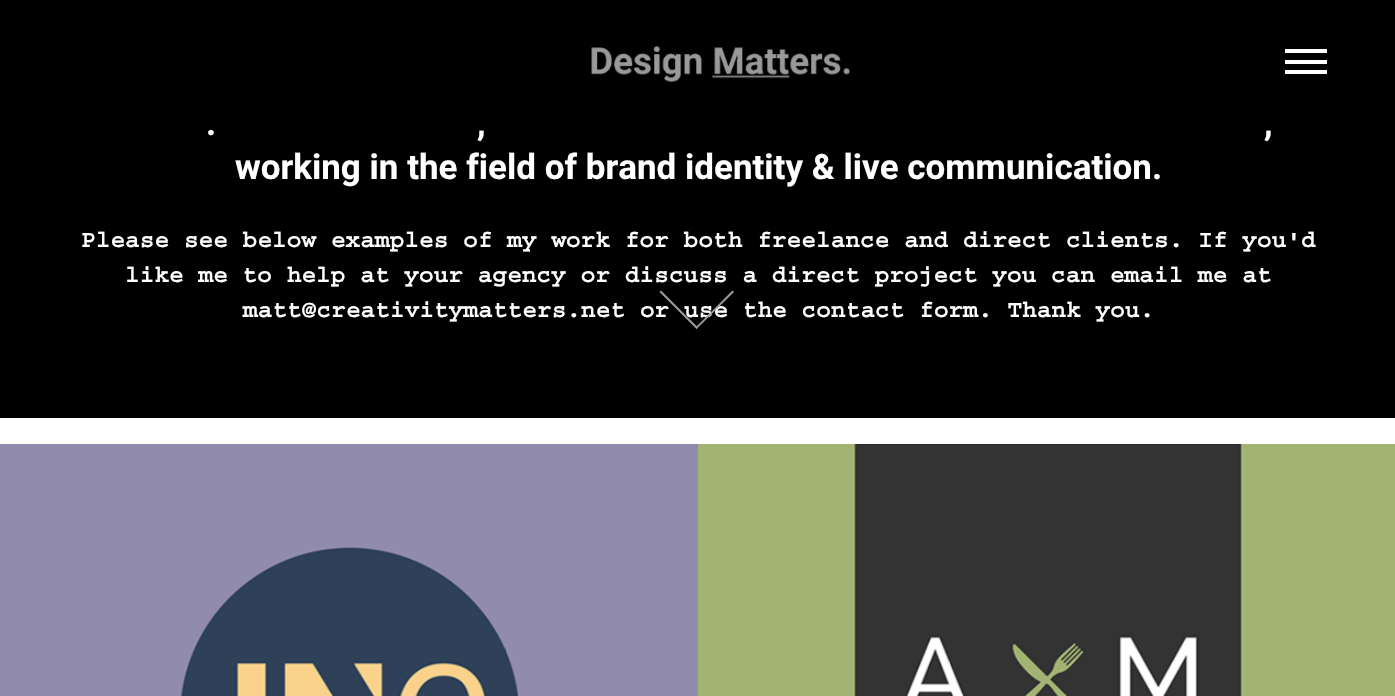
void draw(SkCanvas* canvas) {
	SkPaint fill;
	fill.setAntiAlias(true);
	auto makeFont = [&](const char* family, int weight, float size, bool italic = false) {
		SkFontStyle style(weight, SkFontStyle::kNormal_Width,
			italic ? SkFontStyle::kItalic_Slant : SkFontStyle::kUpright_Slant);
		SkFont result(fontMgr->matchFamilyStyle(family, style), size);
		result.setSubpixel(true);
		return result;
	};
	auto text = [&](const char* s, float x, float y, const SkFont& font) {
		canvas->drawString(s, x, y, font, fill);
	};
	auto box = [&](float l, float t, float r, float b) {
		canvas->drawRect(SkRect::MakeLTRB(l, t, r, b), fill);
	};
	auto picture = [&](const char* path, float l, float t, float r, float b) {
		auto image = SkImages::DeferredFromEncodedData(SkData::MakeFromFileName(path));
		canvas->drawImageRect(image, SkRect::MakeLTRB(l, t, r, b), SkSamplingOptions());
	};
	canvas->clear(0xFFFFFFFF);
	fill.setColor(0xFF000000);
	box(0, 0, 1395, 418);
	picture("image0.png", 591, 46, 850, 83);
	fill.setColor(0xFFFFFFFF);
	box(1285, 49, 1327, 53);
	box(1285, 60, 1327, 64);
	box(1285, 70, 1327, 74);
	picture("image1.png", 0, 444, 698, 696);
	picture("image2.png", 698, 444, 1395, 696);
	auto font1 = makeFont("Roboto", 700, 35);
	text(".", 206, 135, font1);
	text(",", 477, 135, font1);
	text(",", 1264, 135, font1);
	text("working in the field of brand identity & live communication.", 235, 179, font1);
	auto font2 = makeFont("Courier", 700, 24.5f);
	text("Please see below examples of my work for both freelance and direct clients. If you'd", 81, 247, font2);
	text("like me to help at your agency or discuss a direct project you can email me at", 125, 282, font2);
	text("matt@creativitymatters.net or use the contact form. Thank you.", 243, 317, font2);
	fill.setColor(0xFF999999);
	canvas->drawPath(SkPathBuilder().moveTo(732.5f, 290.5f).lineTo(734, 292).lineTo(696.5f, 329).lineTo(695.5f, 327.5f).close().detach(), fill);
	canvas->drawPath(SkPathBuilder().moveTo(661, 290.5f).lineTo(698, 327.5f).lineTo(696.5f, 329).lineTo(659.5f, 292).close().detach(), fill);
}
